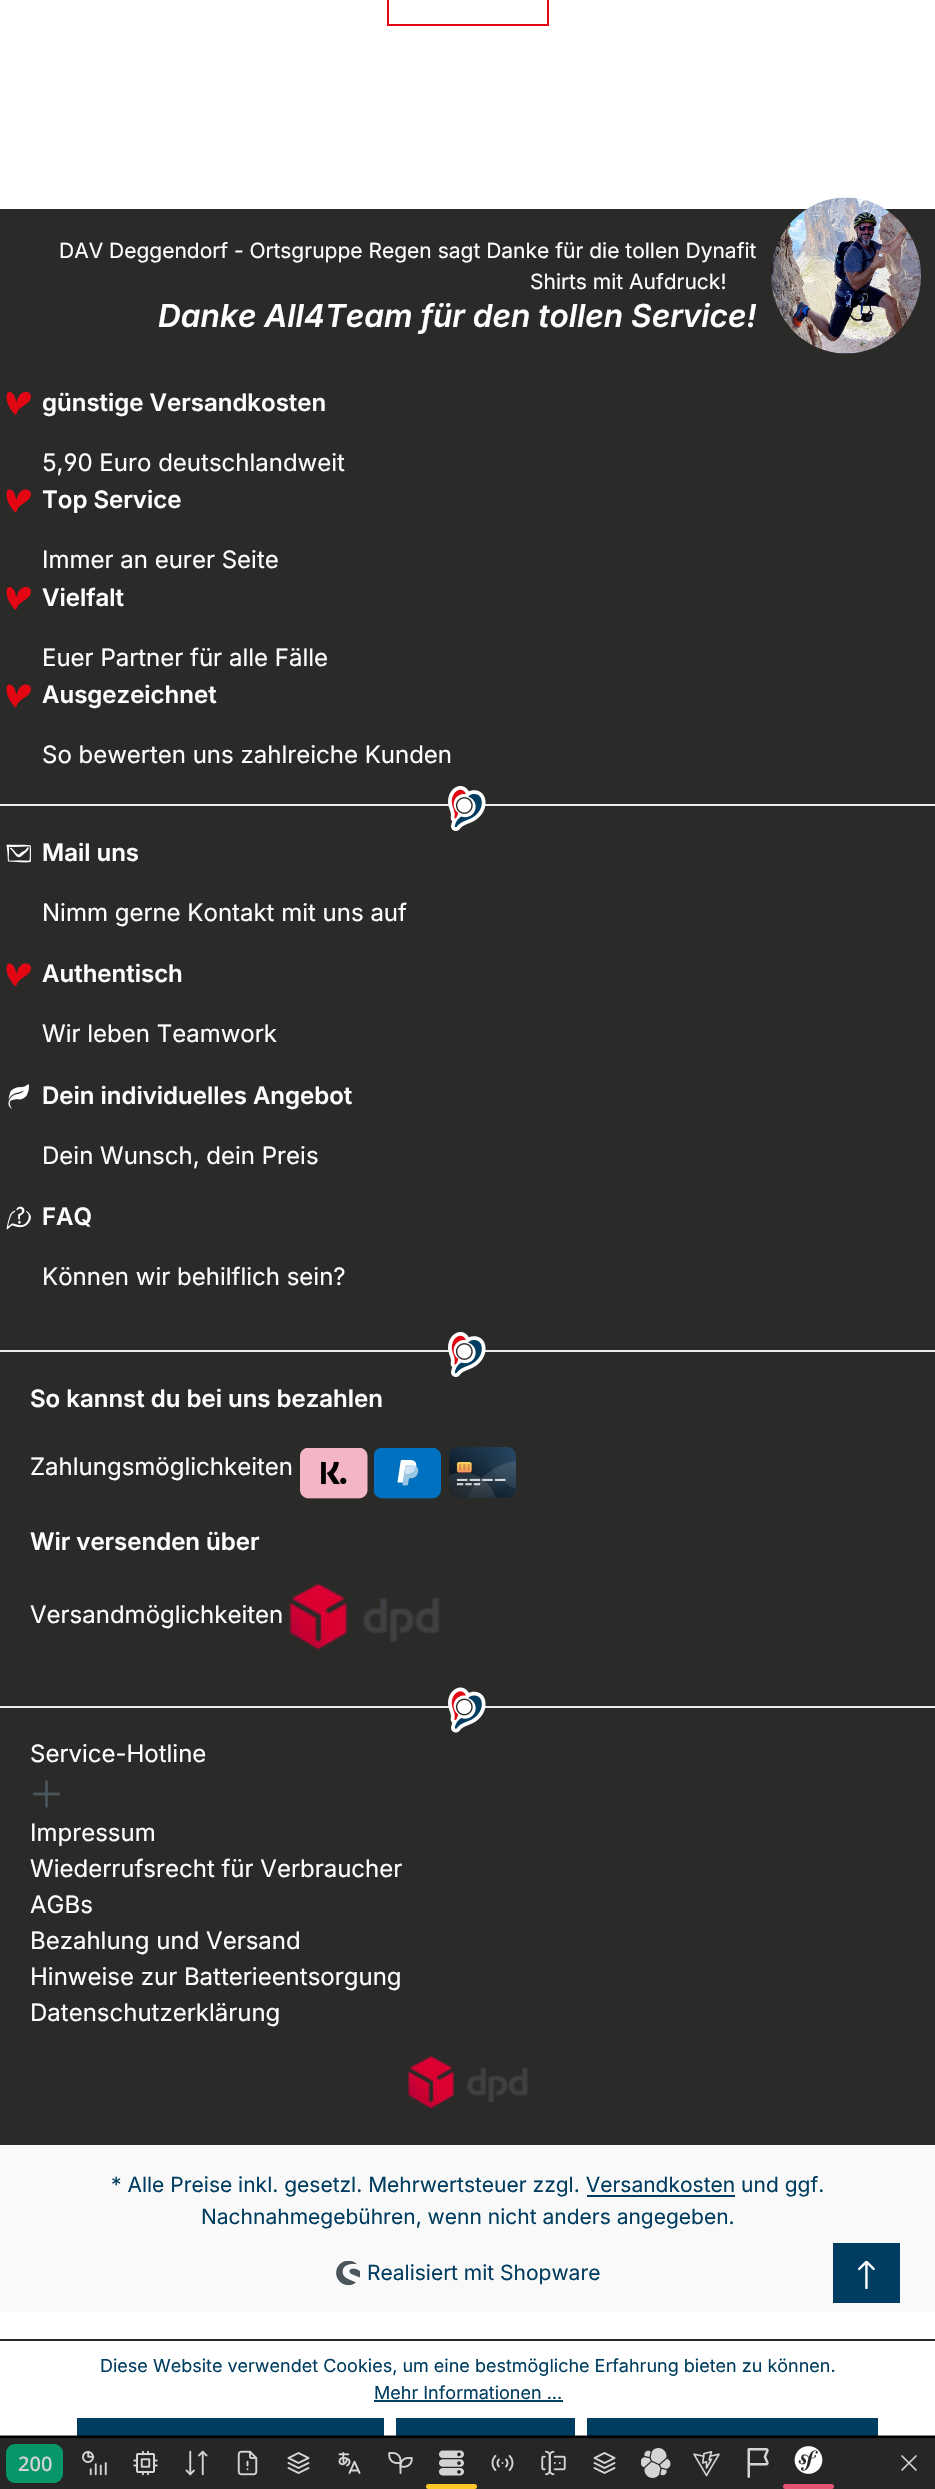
void draw(SkCanvas* canvas) {
	SkPaint fill;
	fill.setAntiAlias(true);
	auto makeFont = [&](const char* family, int weight, float size, bool italic = false) {
		SkFontStyle style(weight, SkFontStyle::kNormal_Width,
			italic ? SkFontStyle::kItalic_Slant : SkFontStyle::kUpright_Slant);
		SkFont result(fontMgr->matchFamilyStyle(family, style), size);
		result.setSubpixel(true);
		return result;
	};
	auto text = [&](const char* s, float x, float y, const SkFont& font) {
		canvas->drawString(s, x, y, font, fill);
	};
	auto box = [&](float l, float t, float r, float b) {
		canvas->drawRect(SkRect::MakeLTRB(l, t, r, b), fill);
	};
	auto roundBox = [&](float l, float t, float r, float b, float radius) {
		canvas->drawRoundRect(SkRect::MakeLTRB(l, t, r, b), radius, radius, fill);
	};
	auto picture = [&](const char* path, float l, float t, float r, float b) {
		auto image = SkImages::DeferredFromEncodedData(SkData::MakeFromFileName(path));
		canvas->drawImageRect(image, SkRect::MakeLTRB(l, t, r, b), SkSamplingOptions());
	};
	canvas->clear(0xFFFFFFFF);
	fill.setColor(0xFF808080);
	box(0, 2435, 935, 2436);
	fill.setStyle(SkPaint::kStroke_Style);
	fill.setStrokeWidth(2);
	fill.setColor(0xFFE30613);
	canvas->drawRect(SkRect::MakeLTRB(388, -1, 548, 25), fill);
	fill.setStyle(SkPaint::kFill_Style);
	fill.setColor(0xFF2A2A29);
	box(0, 209, 935, 2145);
	picture("image0.png", 771, 197, 921, 354);
	picture("image1.png", 6, 391, 31, 416);
	picture("image2.png", 6, 489, 31, 513);
	picture("image1.png", 6, 586, 31, 611);
	picture("image2.png", 6, 684, 31, 708);
	fill.setColor(0xFFECEAEA);
	box(0, 804, 935, 806);
	picture("image3.png", 448, 786, 486, 831);
	picture("image4.png", 6, 844, 31, 863);
	picture("image2.png", 6, 963, 31, 987);
	picture("image5.png", 8, 1084, 29, 1109);
	picture("image6.png", 6, 1206, 31, 1230);
	box(0, 1350, 935, 1352);
	picture("image3.png", 448, 1332, 486, 1377);
	picture("image7.png", 300, 1448, 368, 1499);
	picture("image8.png", 374, 1448, 441, 1499);
	picture("image9.png", 449, 1447, 516, 1498);
	picture("image10.png", 289, 1583, 440, 1650);
	box(0, 1706, 935, 1708);
	picture("image11.png", 448, 1687, 486, 1733);
	picture("image12.png", 32, 1780, 61, 1808);
	picture("image13.png", 408, 2056, 528, 2109);
	fill.setColor(0xFFF9F9F9);
	box(0, 2145, 935, 2312);
	fill.setColor(0xFF003D60);
	box(587, 2195, 735, 2197);
	picture("image14.png", 336, 2261, 360, 2286);
	box(833, 2243, 900, 2303);
	picture("image15.png", 858, 2261, 875, 2289);
	fill.setColor(0xFF2A2A29);
	box(0, 2339, 935, 2341);
	fill.setColor(0xFF003D60);
	box(374, 2400, 563, 2402);
	box(77, 2418, 384, 2435);
	fill.setColor(0xFF001F30);
	box(77, 2435, 384, 2436);
	fill.setColor(0xFF003D60);
	box(396, 2418, 575, 2435);
	fill.setColor(0xFF001F30);
	box(396, 2435, 575, 2436);
	fill.setColor(0xFF003D60);
	box(587, 2418, 878, 2435);
	fill.setColor(0xFF001F30);
	box(587, 2435, 878, 2436);
	fill.setColor(0xFF262626);
	box(0, 2438, 935, 2489);
	fill.setColor(0xFF000000);
	box(0, 2436, 935, 2438);
	fill.setColor(0xFF059669);
	roundBox(6, 2444, 63, 2483, 9);
	picture("image16.png", 82, 2450, 107, 2476);
	picture("image17.png", 133, 2450, 158, 2476);
	picture("image18.png", 185, 2450, 208, 2476);
	picture("image19.png", 237, 2450, 258, 2476);
	picture("image20.png", 287, 2452, 310, 2474);
	picture("image21.png", 338, 2452, 361, 2474);
	picture("image22.png", 388, 2452, 413, 2474);
	picture("image23.png", 439, 2450, 464, 2476);
	fill.setColor(0xFFFBC728);
	roundBox(426, 2484, 477, 2489, 2.5f);
	picture("image24.png", 491, 2455, 514, 2471);
	picture("image25.png", 541, 2450, 566, 2476);
	picture("image20.png", 593, 2452, 616, 2474);
	picture("image26.png", 641, 2448, 671, 2478);
	picture("image27.png", 693, 2451, 720, 2477);
	picture("image28.png", 747, 2448, 769, 2478);
	picture("image29.png", 794, 2446, 823, 2474);
	fill.setColor(0xFFE85574);
	roundBox(783, 2484, 834, 2489, 2.5f);
	fill.setStyle(SkPaint::kStroke_Style);
	fill.setStrokeWidth(1.7f);
	fill.setStrokeCap(SkPaint::kRound_Cap);
	fill.setStrokeJoin(SkPaint::kRound_Join);
	fill.setColor(0xFFD4D4D4);
	canvas->drawPath(SkPathBuilder().moveTo(916, 2456).lineTo(902, 2470).moveTo(902, 2456).lineTo(916, 2470).detach(), fill);
	auto font1 = makeFont("Inter", 400, 21);
	fill.setStyle(SkPaint::kFill_Style);
	fill.setColor(0xFFFFFFFF);
	text("DAV Deggendorf - Ortsgruppe Regen sagt Danke für die tollen Dynafit", 59, 258, font1);
	text("Shirts mit Aufdruck!", 530, 289, font1);
	auto font2 = makeFont("Inter", 600, 31.6f, true);
	text("Danke All4Team für den tollen Service!", 158, 327, font2);
	auto font3 = makeFont("Inter", 600, 24);
	text("günstige Versandkosten", 42, 411, font3);
	auto font4 = makeFont("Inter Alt", 400, 24);
	text("5,90 Euro deutschlandweit", 42, 471, font4);
	text("Top Service", 42, 508, font3);
	auto font5 = makeFont("Inter", 400, 24);
	text("Immer an eurer Seite", 42, 568, font5);
	text("Vielfalt", 42, 606, font3);
	text("Euer Partner für alle Fälle", 42, 666, font5);
	text("Ausgezeichnet", 42, 703, font3);
	text("So bewerten uns zahlreiche Kunden", 42, 763, font5);
	text("Mail uns", 42, 861, font3);
	text("Nimm gerne Kontakt mit uns auf", 42, 921, font5);
	text("Authentisch", 42, 982, font3);
	text("Wir leben Teamwork", 42, 1042, font5);
	text("Dein individuelles Angebot", 42, 1104, font3);
	text("Dein Wunsch, dein Preis", 42, 1164, font5);
	text("FAQ", 42, 1225, font3);
	text("Können wir behilflich sein?", 42, 1285, font5);
	text("So kannst du bei uns bezahlen", 30, 1407, font3);
	text("Zahlungsmöglichkeiten", 30, 1475, font5);
	text("Wir versenden über", 30, 1550, font3);
	text("Versandmöglichkeiten", 30, 1623, font5);
	text("Service-Hotline", 30, 1762, font5);
	text("Impressum", 30, 1841, font5);
	text("Wiederrufsrecht für Verbraucher", 30, 1877, font5);
	text("AGBs", 30, 1913, font5);
	text("Bezahlung und Versand", 30, 1949, font5);
	text("Hinweise zur Batterieentsorgung", 30, 1985, font5);
	text("Datenschutzerklärung", 30, 2021, font5);
	fill.setColor(0xFF003D60);
	text("* Alle Preise inkl. gesetzl. Mehrwertsteuer zzgl. Versandkosten und ggf.", 111, 2192, font1);
	text("Nachnahmegebühren, wenn nicht anders angegeben.", 201, 2224, font1);
	text("Realisiert mit Shopware", 367, 2280, font1);
	auto font6 = makeFont("Inter", 400, 18);
	text("Diese Website verwendet Cookies, um eine bestmögliche Erfahrung bieten zu können.", 100, 2372, font6);
	text("Mehr Informationen ...", 374, 2399, font6);
	auto font7 = makeFont("Noto Sans", 500, 20);
	fill.setColor(0xFFD4D4D4);
	text("200", 18, 2471, font7);
}
